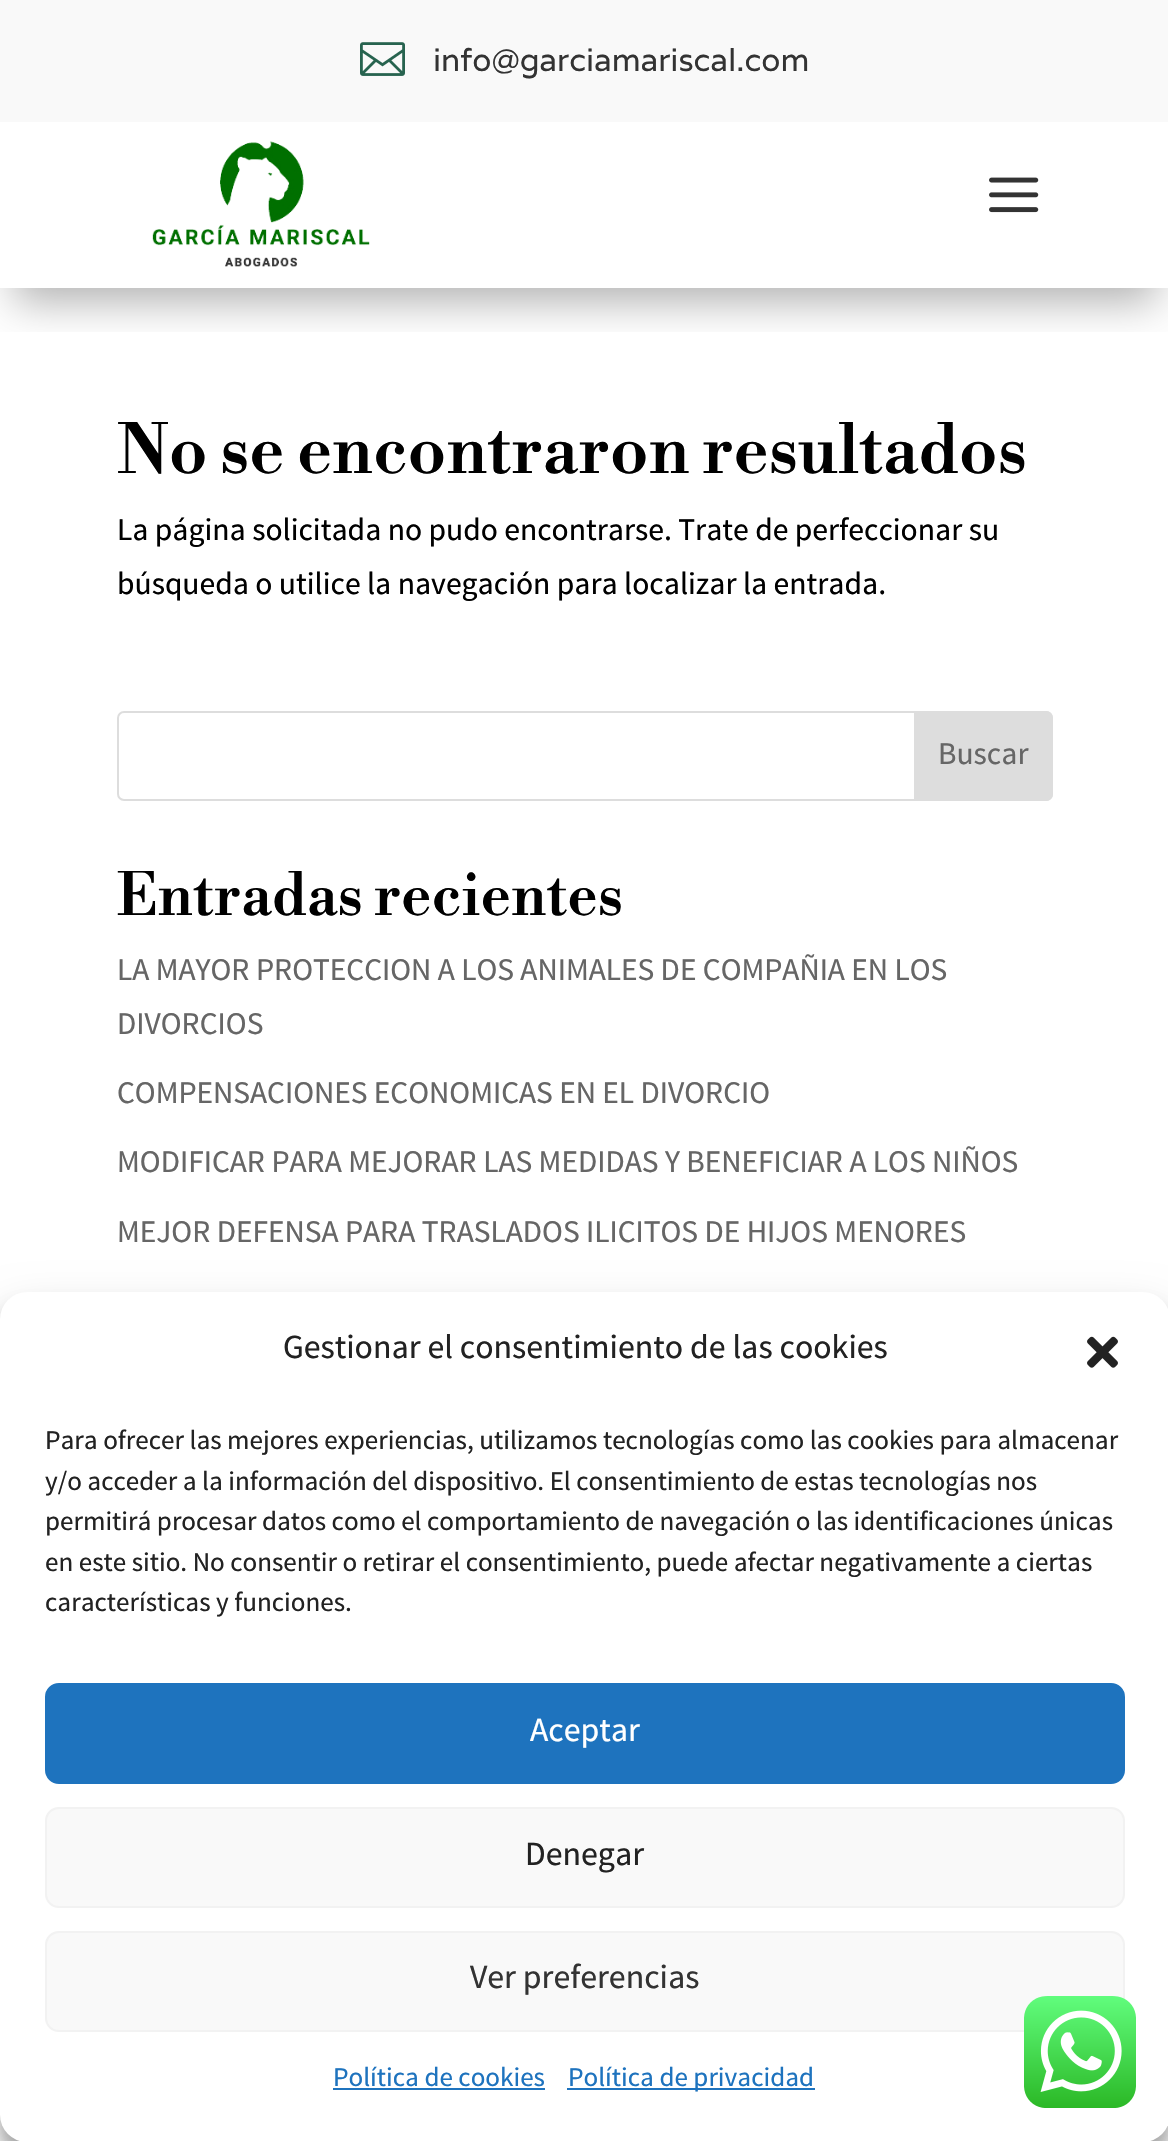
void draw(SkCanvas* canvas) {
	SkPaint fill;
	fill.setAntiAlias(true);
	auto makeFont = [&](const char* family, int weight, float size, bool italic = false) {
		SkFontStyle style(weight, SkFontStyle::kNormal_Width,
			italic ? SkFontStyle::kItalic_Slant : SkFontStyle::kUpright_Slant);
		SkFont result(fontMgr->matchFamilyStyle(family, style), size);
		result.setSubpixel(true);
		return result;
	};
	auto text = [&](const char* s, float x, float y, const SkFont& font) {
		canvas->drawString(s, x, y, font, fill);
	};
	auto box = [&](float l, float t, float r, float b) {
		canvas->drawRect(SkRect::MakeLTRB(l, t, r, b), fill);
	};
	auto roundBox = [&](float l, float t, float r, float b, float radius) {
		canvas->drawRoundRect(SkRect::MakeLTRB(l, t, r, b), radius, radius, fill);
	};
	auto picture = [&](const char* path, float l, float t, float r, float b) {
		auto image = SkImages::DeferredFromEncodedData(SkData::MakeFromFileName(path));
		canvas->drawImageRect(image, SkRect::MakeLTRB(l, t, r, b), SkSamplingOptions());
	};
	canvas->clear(0xFFFFFFFF);
	fill.setColor(0xFFF9F9F9);
	box(0, 0, 1168, 122);
	picture("image0.png", 360, 42, 405, 76);
	canvas->save();
	canvas->clipRect(SkRect::MakeLTRB(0, 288, 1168, 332));
	fill.setColor(0x4D000000);
	fill.setMaskFilter(SkMaskFilter::MakeBlur(kNormal_SkBlurStyle, 20));
	canvas->drawRect(SkRect::MakeLTRB(14, 162, 1157, 302), fill);
	fill.setMaskFilter(nullptr);
	canvas->restore();
	picture("image1.png", 152, 141, 370, 267);
	picture("image2.png", 989, 177, 1039, 213);
	fill.setStyle(SkPaint::kStroke_Style);
	fill.setStrokeWidth(2);
	fill.setColor(0xFFDDDDDD);
	canvas->drawRoundRect(SkRect::MakeLTRB(118, 712, 1052, 800), 6, 6, fill);
	fill.setStyle(SkPaint::kFill_Style);
	canvas->drawPath(SkPathBuilder().moveTo(915, 712).lineTo(1046, 712).cubicTo(1049.5f, 712, 1052, 714.5f, 1052, 718).lineTo(1052, 794).cubicTo(1052, 797.5f, 1049.5f, 800, 1046, 800).lineTo(915, 800).close().detach(), fill);
	fill.setStyle(SkPaint::kStroke_Style);
	canvas->drawPath(SkPathBuilder().moveTo(915, 712).lineTo(1046, 712).cubicTo(1049.5f, 712, 1052, 714.5f, 1052, 718).lineTo(1052, 794).cubicTo(1052, 797.5f, 1049.5f, 800, 1046, 800).lineTo(915, 800).close().detach(), fill);
	fill.setStyle(SkPaint::kFill_Style);
	fill.setColor(0x3B000000);
	fill.setMaskFilter(SkMaskFilter::MakeBlur(kNormal_SkBlurStyle, 7));
	canvas->drawRoundRect(SkRect::MakeLTRB(0, 1305, 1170, 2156), 27, 27, fill);
	fill.setMaskFilter(nullptr);
	fill.setColor(0x30000000);
	fill.setMaskFilter(SkMaskFilter::MakeBlur(kNormal_SkBlurStyle, 22.5f));
	canvas->drawRoundRect(SkRect::MakeLTRB(0, 1314, 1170, 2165), 27, 27, fill);
	fill.setMaskFilter(nullptr);
	fill.setColor(0xFFFFFFFF);
	roundBox(0, 1292, 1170, 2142, 27);
	picture("image3.png", 1087, 1336, 1118, 1368);
	fill.setColor(0xFF1E73BE);
	canvas->drawRoundRect(SkRect::MakeLTRB(46, 1684, 1124, 1783), 13, 13, fill);
	fill.setStyle(SkPaint::kStroke_Style);
	canvas->drawRoundRect(SkRect::MakeLTRB(46, 1684, 1124, 1783), 13, 13, fill);
	fill.setStyle(SkPaint::kFill_Style);
	fill.setColor(0xFFF9F9F9);
	canvas->drawRoundRect(SkRect::MakeLTRB(46, 1808, 1124, 1907), 13, 13, fill);
	fill.setStyle(SkPaint::kStroke_Style);
	fill.setColor(0xFFF2F2F2);
	canvas->drawRoundRect(SkRect::MakeLTRB(46, 1808, 1124, 1907), 13, 13, fill);
	fill.setStyle(SkPaint::kFill_Style);
	fill.setColor(0xFFF9F9F9);
	canvas->drawRoundRect(SkRect::MakeLTRB(46, 1932, 1124, 2031), 13, 13, fill);
	fill.setStyle(SkPaint::kStroke_Style);
	fill.setColor(0xFFF2F2F2);
	canvas->drawRoundRect(SkRect::MakeLTRB(46, 1932, 1124, 2031), 13, 13, fill);
	fill.setStyle(SkPaint::kFill_Style);
	fill.setColor(0xFF1E73BE);
	box(333, 2088, 545, 2090);
	box(567, 2088, 815, 2090);
	picture("image4.png", 1024, 1996, 1136, 2108);
	auto font1 = makeFont("Varela", 400, 31.5f);
	fill.setColor(0xFF333333);
	text("info@garciamariscal.com", 433, 71, font1);
	auto font2 = makeFont("Libre Bodoni", 500, 67.5f);
	fill.setColor(0xFF000000);
	text("No se encontraron resultados", 117, 473, font2);
	auto font3 = makeFont("Varta", 500, 31.5f);
	text("La página solicitada no pudo encontrarse. Trate de perfeccionar su", 117, 540, font3);
	text("búsqueda o utilice la navegación para localizar la entrada.", 117, 594, font3);
	fill.setColor(0xFF666666);
	text("Buscar", 938, 764, font3);
	auto font4 = makeFont("Libre Bodoni", 500, 58.5f);
	fill.setColor(0xFF000000);
	text("Entradas recientes", 117, 915, font4);
	fill.setColor(0xFF666666);
	text("LA MAYOR PROTECCION A LOS ANIMALES DE COMPAÑIA EN LOS", 117, 980, font3);
	text("DIVORCIOS", 117, 1034, font3);
	text("COMPENSACIONES ECONOMICAS EN EL DIVORCIO", 117, 1103, font3);
	text("MODIFICAR PARA MEJORAR LAS MEDIDAS Y BENEFICIAR A LOS NIÑOS", 117, 1172, font3);
	text("MEJOR DEFENSA PARA TRASLADOS ILICITOS DE HIJOS MENORES", 117, 1242, font3);
	auto font5 = makeFont("Varta", 500, 33.75f);
	fill.setColor(0xFF222222);
	text("Gestionar el consentimiento de las cookies", 283, 1358, font5);
	auto font6 = makeFont("Varta", 500, 27);
	text("Para ofrecer las mejores experiencias, utilizamos tecnologías como las cookies para almacenar", 45, 1449, font6);
	text("y/o acceder a la información del dispositivo. El consentimiento de estas tecnologías nos", 45, 1490, font6);
	text("permitirá procesar datos como el comportamiento de navegación o las identificaciones únicas", 45, 1530, font6);
	text("en este sitio. No consentir o retirar el consentimiento, puede afectar negativamente a ciertas", 45, 1571, font6);
	text("características y funciones.", 45, 1611, font6);
	fill.setColor(0xFFFFFFFF);
	text("Aceptar", 530, 1741, font5);
	fill.setColor(0xFF222222);
	text("Denegar", 525, 1865, font5);
	fill.setColor(0xFF333333);
	text("Ver preferencias", 470, 1988, font5);
	fill.setColor(0xFF1E73BE);
	text("Política de cookies", 333, 2086, font6);
	text("Política de privacidad", 568, 2086, font6);
}
